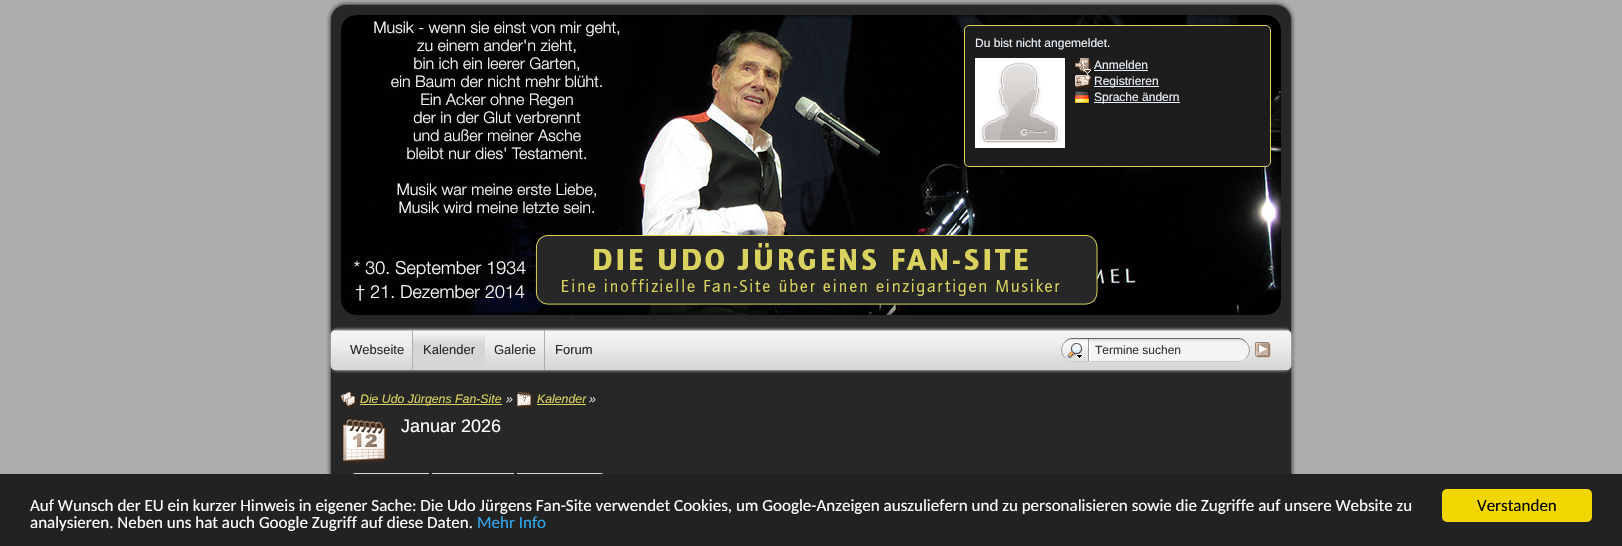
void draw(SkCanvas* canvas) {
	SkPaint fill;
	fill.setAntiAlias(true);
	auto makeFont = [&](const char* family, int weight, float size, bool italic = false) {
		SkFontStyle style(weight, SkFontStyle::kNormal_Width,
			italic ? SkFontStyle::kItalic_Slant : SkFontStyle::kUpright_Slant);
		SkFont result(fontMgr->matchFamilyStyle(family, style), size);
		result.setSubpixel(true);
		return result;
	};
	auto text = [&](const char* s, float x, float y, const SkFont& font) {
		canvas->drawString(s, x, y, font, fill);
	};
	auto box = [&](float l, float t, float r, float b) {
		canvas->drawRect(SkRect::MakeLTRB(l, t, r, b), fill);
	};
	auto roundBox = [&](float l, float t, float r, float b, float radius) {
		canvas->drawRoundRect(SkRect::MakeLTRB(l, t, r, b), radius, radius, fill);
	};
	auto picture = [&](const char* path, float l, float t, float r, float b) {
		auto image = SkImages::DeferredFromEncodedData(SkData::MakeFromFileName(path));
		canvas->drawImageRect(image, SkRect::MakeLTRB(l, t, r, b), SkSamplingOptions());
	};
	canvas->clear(0xFFADADAD);
	picture("image0.png", 341, 15, 1281, 315);
	picture("image7.png", 326, 0, 1296, 325);
	fill.setColor(0xFF1D1D1D);
	canvas->drawRoundRect(SkRect::MakeLTRB(964.5f, 25.5f, 1270.5f, 166.5f), 4.5f, 4.5f, fill);
	fill.setStyle(SkPaint::kStroke_Style);
	fill.setStrokeWidth(1);
	fill.setColor(0xFFD9D25E);
	canvas->drawRoundRect(SkRect::MakeLTRB(964.5f, 25.5f, 1270.5f, 166.5f), 4.5f, 4.5f, fill);
	picture("image1.png", 975, 58, 1065, 148);
	picture("image2.png", 1075, 58, 1091, 74);
	fill.setStyle(SkPaint::kFill_Style);
	fill.setColor(0xFFEBF1F6);
	box(1094, 70, 1148, 71);
	picture("image3.png", 1075, 74, 1091, 89);
	box(1094, 86, 1159, 87);
	picture("image4.png", 1075, 91, 1090, 104);
	box(1094, 102, 1180, 103);
	picture("image5.png", 326, 325, 1296, 375);
	fill.setColor(0xFFADADAD);
	box(412, 330, 413, 370);
	picture("image6.png", 413, 330, 485, 370);
	box(544, 330, 545, 370);
	fill.setColor(0xFFF4F4F4);
	roundBox(1061, 338, 1250, 362, 12);
	picture("image8.png", 1062, 339, 1245, 362);
	fill.setStyle(SkPaint::kStroke_Style);
	fill.setColor(0xFF666666);
	canvas->drawPath(SkPathBuilder().moveTo(1065, 342).cubicTo(1067, 339.5f, 1070, 338.5f, 1073, 338.5f).lineTo(1238, 338.5f).cubicTo(1241, 338.5f, 1244, 339.5f, 1246, 342).detach(), fill);
	fill.setColor(0xFF999999);
	canvas->drawPath(SkPathBuilder().moveTo(1246, 342).cubicTo(1250.5f, 346.5f, 1250.5f, 353.5f, 1246, 358).detach(), fill);
	fill.setColor(0xFFCCCCCC);
	canvas->drawPath(SkPathBuilder().moveTo(1246, 358).cubicTo(1244, 360.5f, 1241, 361.5f, 1238, 361.5f).lineTo(1073, 361.5f).cubicTo(1070, 361.5f, 1067, 360.5f, 1065, 358).detach(), fill);
	fill.setColor(0xFF999999);
	canvas->drawPath(SkPathBuilder().moveTo(1065, 358).cubicTo(1060.5f, 353.5f, 1060.5f, 346.5f, 1065, 342).detach(), fill);
	picture("image9.png", 1255, 342, 1271, 358);
	picture("image10.png", 326, 375, 1296, 474);
	picture("image11.png", 341, 392, 357, 408);
	fill.setStyle(SkPaint::kFill_Style);
	fill.setColor(0xFFD9D25E);
	box(360, 404, 502, 405);
	picture("image12.png", 517, 392, 533, 408);
	box(537, 404, 586, 405);
	picture("image13.png", 343, 419, 387, 463);
	fill.setColor(0xFFD6D6D6);
	canvas->drawPath(SkPathBuilder(SkPathFillType::kEvenOdd).moveTo(356, 473).lineTo(429, 473).lineTo(429, 504).lineTo(351, 504).lineTo(351, 478).cubicTo(351, 475, 353, 473, 356, 473).close().moveTo(356, 474).lineTo(428, 474).lineTo(428, 504).lineTo(352, 504).lineTo(352, 478).cubicTo(352, 476, 354, 474, 356, 474).close().detach(), fill);
	box(432, 473, 514, 474);
	canvas->drawPath(SkPathBuilder(SkPathFillType::kEvenOdd).moveTo(517, 473).lineTo(600, 473).cubicTo(603, 473, 605, 475, 605, 478).lineTo(605, 502).lineTo(517, 502).close().moveTo(518, 474).lineTo(600, 474).cubicTo(602, 474, 604, 476, 604, 478).lineTo(604, 502).lineTo(518, 502).close().detach(), fill);
	fill.setColor(0xFF222222);
	box(0, 474, 1622, 546);
	fill.setColor(0xFFF1D600);
	roundBox(1442, 489, 1592, 522, 5);
	auto font1 = makeFont("Liberation Sans", 400, 12);
	fill.setColor(0xFFEBF1F6);
	text("Du bist nicht angemeldet.", 975, 47, font1);
	text("Anmelden", 1094, 69, font1);
	text("Registrieren", 1094, 85, font1);
	text("Sprache ändern", 1094, 101, font1);
	auto font2 = makeFont("Liberation Sans", 400, 13);
	fill.setColor(0xFF272727);
	text("Webseite", 350, 354, font2);
	text("Kalender", 423, 354, font2);
	text("Galerie", 494, 354, font2);
	text("Forum", 555, 354, font2);
	fill.setColor(0xFF333333);
	text("Termine suchen", 1095, 354, font1);
	auto font3 = makeFont("Liberation Sans", 400, 12.3f, true);
	fill.setColor(0xFFD9D25E);
	text("Die Udo Jürgens Fan-Site", 360, 403, font3);
	fill.setColor(0xFFDDDDDD);
	text("»", 506, 403, font3);
	fill.setColor(0xFFD9D25E);
	text("Kalender", 537, 403, font3);
	fill.setColor(0xFFDDDDDD);
	text("»", 589, 403, font3);
	auto font4 = makeFont("Liberation Sans", 400, 18);
	fill.setColor(0xFFFFFFFF);
	text("Januar 2026", 401, 432, font4);
	auto font5 = makeFont("Carlito", 400, 17);
	text("Auf Wunsch der EU ein kurzer Hinweis in eigener Sache: Die Udo Jürgens Fan-Site verwendet Cookies, um Google-Anzeigen auszuliefern und zu personalisieren sowie die Zugriffe auf unsere Website zu", 30, 511, font5);
	text("analysieren. Neben uns hat auch Google Zugriff auf diese Daten.", 30, 528, font5);
	fill.setColor(0xFF31A8F0);
	text("Mehr Info", 477, 528, font5);
	fill.setColor(0xFF000000);
	text("Verstanden", 1477, 511, font5);
}
